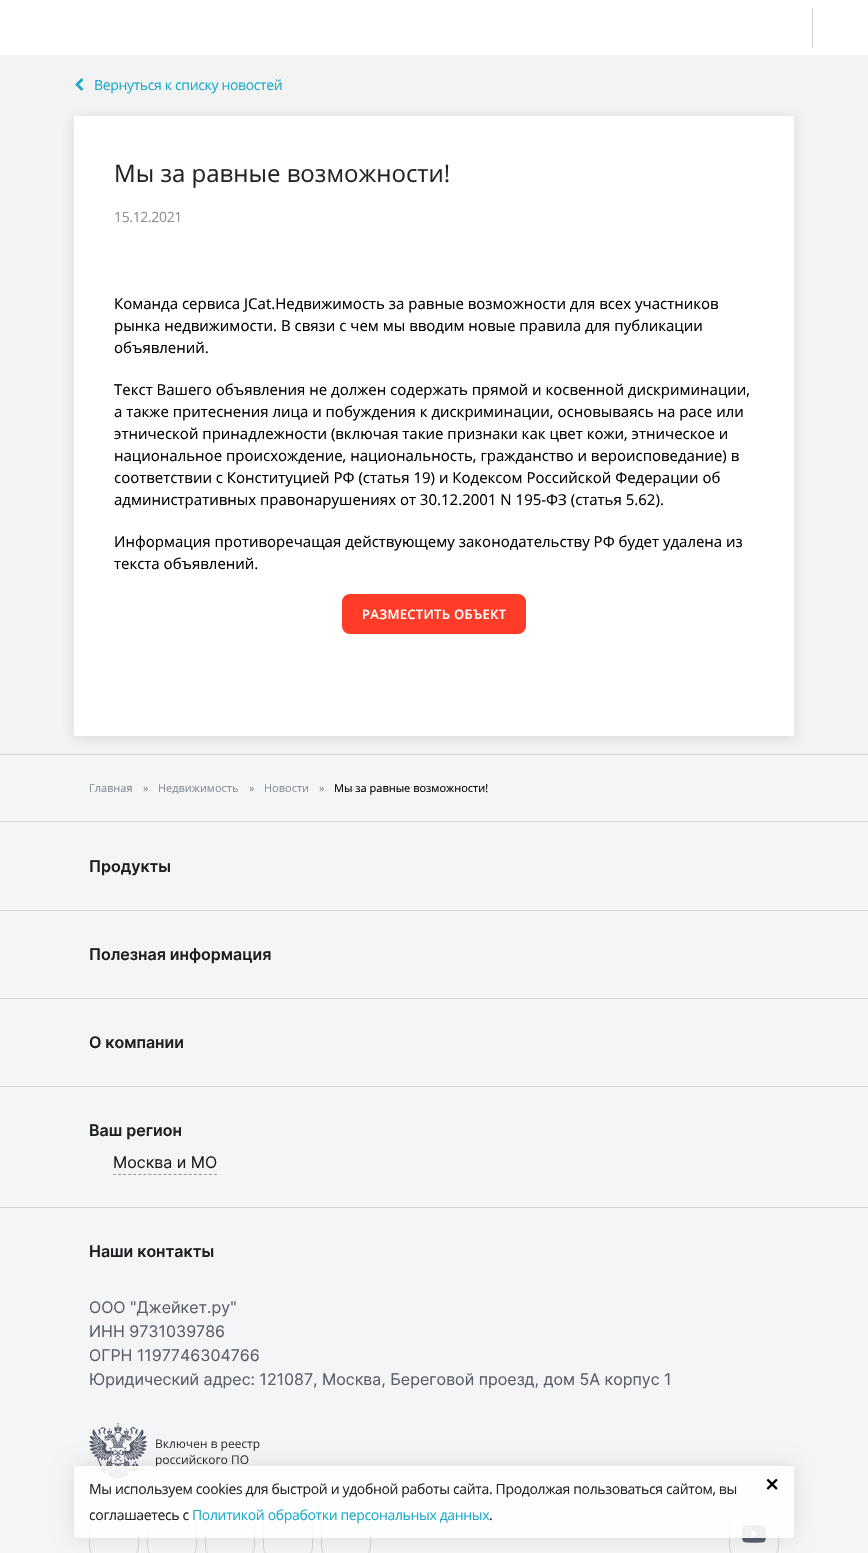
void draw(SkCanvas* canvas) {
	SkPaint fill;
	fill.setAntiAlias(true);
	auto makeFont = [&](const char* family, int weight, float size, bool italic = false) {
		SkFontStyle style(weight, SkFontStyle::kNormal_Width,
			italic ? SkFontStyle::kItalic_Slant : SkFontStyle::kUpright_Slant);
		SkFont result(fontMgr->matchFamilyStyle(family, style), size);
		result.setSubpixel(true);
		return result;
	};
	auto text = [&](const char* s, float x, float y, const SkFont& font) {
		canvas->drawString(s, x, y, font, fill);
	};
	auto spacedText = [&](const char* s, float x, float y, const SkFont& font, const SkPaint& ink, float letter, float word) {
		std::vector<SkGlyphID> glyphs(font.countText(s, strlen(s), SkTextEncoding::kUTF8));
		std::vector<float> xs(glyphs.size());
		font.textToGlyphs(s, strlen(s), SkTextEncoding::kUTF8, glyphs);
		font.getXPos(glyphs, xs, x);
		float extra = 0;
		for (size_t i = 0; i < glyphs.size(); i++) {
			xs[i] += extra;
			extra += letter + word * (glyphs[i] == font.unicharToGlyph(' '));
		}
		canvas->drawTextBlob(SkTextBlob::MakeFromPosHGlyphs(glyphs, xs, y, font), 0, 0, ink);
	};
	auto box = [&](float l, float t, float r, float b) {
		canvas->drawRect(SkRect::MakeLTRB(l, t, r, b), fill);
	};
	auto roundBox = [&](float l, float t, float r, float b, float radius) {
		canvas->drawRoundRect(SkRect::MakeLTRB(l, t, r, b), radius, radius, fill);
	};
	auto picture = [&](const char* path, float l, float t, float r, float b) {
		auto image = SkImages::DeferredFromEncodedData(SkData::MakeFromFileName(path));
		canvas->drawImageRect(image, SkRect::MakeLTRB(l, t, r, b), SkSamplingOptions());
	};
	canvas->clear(0xFFF3F3F3);
	fill.setColor(0xFFFFFFFF);
	box(0, 0, 868, 55);
	fill.setColor(0xFFD4D5DA);
	box(812, 8, 813, 48);
	picture("image0.png", 75, 78, 84, 91);
	fill.setColor(0xFFF5F5F7);
	box(0, 755, 868, 1553);
	fill.setColor(0xFFD4D5DA);
	box(0, 754, 868, 755);
	fill.setColor(0x26303939);
	fill.setMaskFilter(SkMaskFilter::MakeBlur(kNormal_SkBlurStyle, 6.5f));
	canvas->drawRect(SkRect::MakeLTRB(74, 118, 794, 738), fill);
	fill.setMaskFilter(nullptr);
	fill.setColor(0xFFFFFFFF);
	box(74, 116, 794, 736);
	fill.setColor(0xFFFF3C28);
	roundBox(342, 594, 526, 634, 8);
	fill.setColor(0xFFD4D5DA);
	box(0, 821, 868, 822);
	box(0, 910, 868, 911);
	box(0, 998, 868, 999);
	box(0, 1086, 868, 1087);
	fill.setStyle(SkPaint::kStroke_Style);
	fill.setStrokeWidth(1);
	fill.setColor(0xFF9699A3);
	fill.setPathEffect(SkDashPathEffect::Make({{3, 2.05f}}, 0));
	canvas->drawPath(SkPathBuilder().moveTo(113, 1174.5f).lineTo(217, 1174.5f).detach(), fill);
	fill.setPathEffect(nullptr);
	fill.setStyle(SkPaint::kFill_Style);
	fill.setColor(0xFFD4D5DA);
	box(0, 1207, 868, 1208);
	picture("image1.png", 89, 1423, 260, 1479);
	fill.setStyle(SkPaint::kStroke_Style);
	canvas->drawRoundRect(SkRect::MakeLTRB(89.5f, 1509.5f, 138.5f, 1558.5f), 11.5f, 11.5f, fill);
	canvas->drawRoundRect(SkRect::MakeLTRB(147.5f, 1509.5f, 196.5f, 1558.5f), 11.5f, 11.5f, fill);
	canvas->drawRoundRect(SkRect::MakeLTRB(205.5f, 1509.5f, 254.5f, 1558.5f), 11.5f, 11.5f, fill);
	canvas->drawRoundRect(SkRect::MakeLTRB(263.5f, 1509.5f, 312.5f, 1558.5f), 11.5f, 11.5f, fill);
	canvas->drawRoundRect(SkRect::MakeLTRB(321.5f, 1509.5f, 370.5f, 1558.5f), 11.5f, 11.5f, fill);
	canvas->drawRoundRect(SkRect::MakeLTRB(729.5f, 1509.5f, 778.5f, 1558.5f), 11.5f, 11.5f, fill);
	picture("image2.png", 742, 1525, 766, 1543);
	canvas->save();
	canvas->clipPath(SkPathBuilder(SkPathFillType::kEvenOdd).moveTo(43, 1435).lineTo(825, 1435).lineTo(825, 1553).lineTo(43, 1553).close().moveTo(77, 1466).lineTo(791, 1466).cubicTo(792.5f, 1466, 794, 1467.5f, 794, 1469).lineTo(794, 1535).cubicTo(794, 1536.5f, 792.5f, 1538, 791, 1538).lineTo(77, 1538).cubicTo(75.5f, 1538, 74, 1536.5f, 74, 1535).lineTo(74, 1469).cubicTo(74, 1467.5f, 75.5f, 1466, 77, 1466).close().detach(), true);
	fill.setStyle(SkPaint::kFill_Style);
	fill.setColor(0x1A000000);
	fill.setMaskFilter(SkMaskFilter::MakeBlur(kNormal_SkBlurStyle, 10));
	canvas->drawRoundRect(SkRect::MakeLTRB(74, 1466, 794, 1538), 3, 3, fill);
	fill.setMaskFilter(nullptr);
	canvas->restore();
	fill.setColor(0xE6FFFFFF);
	roundBox(74, 1466, 794, 1538, 3);
	auto font1 = makeFont("Open Sans", 400, 14);
	fill.setColor(0xFF1BABC9);
	spacedText("Вернуться к списку новостей", 94, 90, font1, fill, -0.35f, 0);
	auto font2 = makeFont("Open Sans", 400, 24);
	fill.setColor(0xFF212529);
	text("Мы за равные возможности!", 114, 182, font2);
	fill.setColor(0xFF8C9091);
	spacedText("15.12.2021", 114, 222, font1, fill, -0.35f, 0);
	auto font3 = makeFont("Open Sans", 400, 15);
	fill.setColor(0xFF000000);
	text("Команда сервиса JCat.Недвижимость за равные возможности для всех участников", 114, 309, font3);
	text("рынка недвижимости. В связи с чем мы вводим новые правила для публикации", 114, 331, font3);
	text("объявлений.", 114, 353, font3);
	text("Текст Вашего объявления не должен содержать прямой и косвенной дискриминации,", 114, 395, font3);
	text("а также притеснения лица и побуждения к дискриминации, основываясь на расе или", 114, 417, font3);
	text("этнической принадлежности (включая такие признаки как цвет кожи, этническое и", 114, 439, font3);
	text("национальное происхождение, национальность, гражданство и вероисповедание) в", 114, 461, font3);
	text("соответствии с Конституцией РФ (статья 19) и Кодексом Российской Федерации об", 114, 483, font3);
	text("административных правонарушениях от 30.12.2001 N 195-ФЗ (статья 5.62).", 114, 505, font3);
	text("Информация противоречащая действующему законодательству РФ будет удалена из", 114, 547, font3);
	text("текста объявлений.", 114, 569, font3);
	auto font4 = makeFont("Open Sans", 600, 13);
	fill.setColor(0xFFFFFFFF);
	spacedText("РАЗМЕСТИТЬ ОБЪЕКТ", 362, 619, font4, fill, 0.3f, 0);
	auto font5 = makeFont("Open Sans", 400, 11);
	fill.setColor(0xFF868E96);
	text("Главная", 89, 792, font5);
	text("»", 143, 792, font5);
	text("Недвижимость", 158, 792, font5);
	text("»", 249, 792, font5);
	text("Новости", 264, 792, font5);
	text("»", 319, 792, font5);
	fill.setColor(0xFF000000);
	text("Мы за равные возможности!", 334, 792, font5);
	auto font6 = makeFont("Inter", 600, 16);
	fill.setColor(0xFF1C2023);
	text("Продукты", 89, 872, font6);
	text("Полезная информация", 89, 960, font6);
	text("О компании", 89, 1048, font6);
	text("Ваш регион", 89, 1136, font6);
	auto font7 = makeFont("Inter", 400, 16);
	text("Москва и МО", 113, 1168, font7);
	text("Наши контакты", 89, 1257, font6);
	fill.setColor(0xFF585E6A);
	text("ООО \"Джейкет.ру\"", 89, 1313, font7);
	text("ИНН 9731039786", 89, 1337, font7);
	text("ОГРН 1197746304766", 89, 1361, font7);
	text("Юридический адрес: 121087, Москва, Береговой проезд, дом 5А корпус 1", 89, 1385, font7);
	fill.setColor(0xFF212529);
	spacedText("Мы используем cookies для быстрой и удобной работы сайта. Продолжая пользоваться сайтом, вы", 89, 1494, font1, fill, -0.35f, 0);
	auto font8 = makeFont("Open Sans", 600, 25);
	fill.setColor(0xFF000000);
	spacedText("×", 765, 1493, font8, fill, -1, 0);
	fill.setColor(0xFF212529);
	spacedText("соглашаетесь с", 89, 1520, font1, fill, -0.35f, 0);
	fill.setColor(0xFF1BABC9);
	spacedText("Политикой обработки персональных данных", 192, 1520, font1, fill, -0.35f, 0);
	fill.setColor(0xFF212529);
	spacedText(".", 489, 1520, font1, fill, -0.35f, 0);
}
